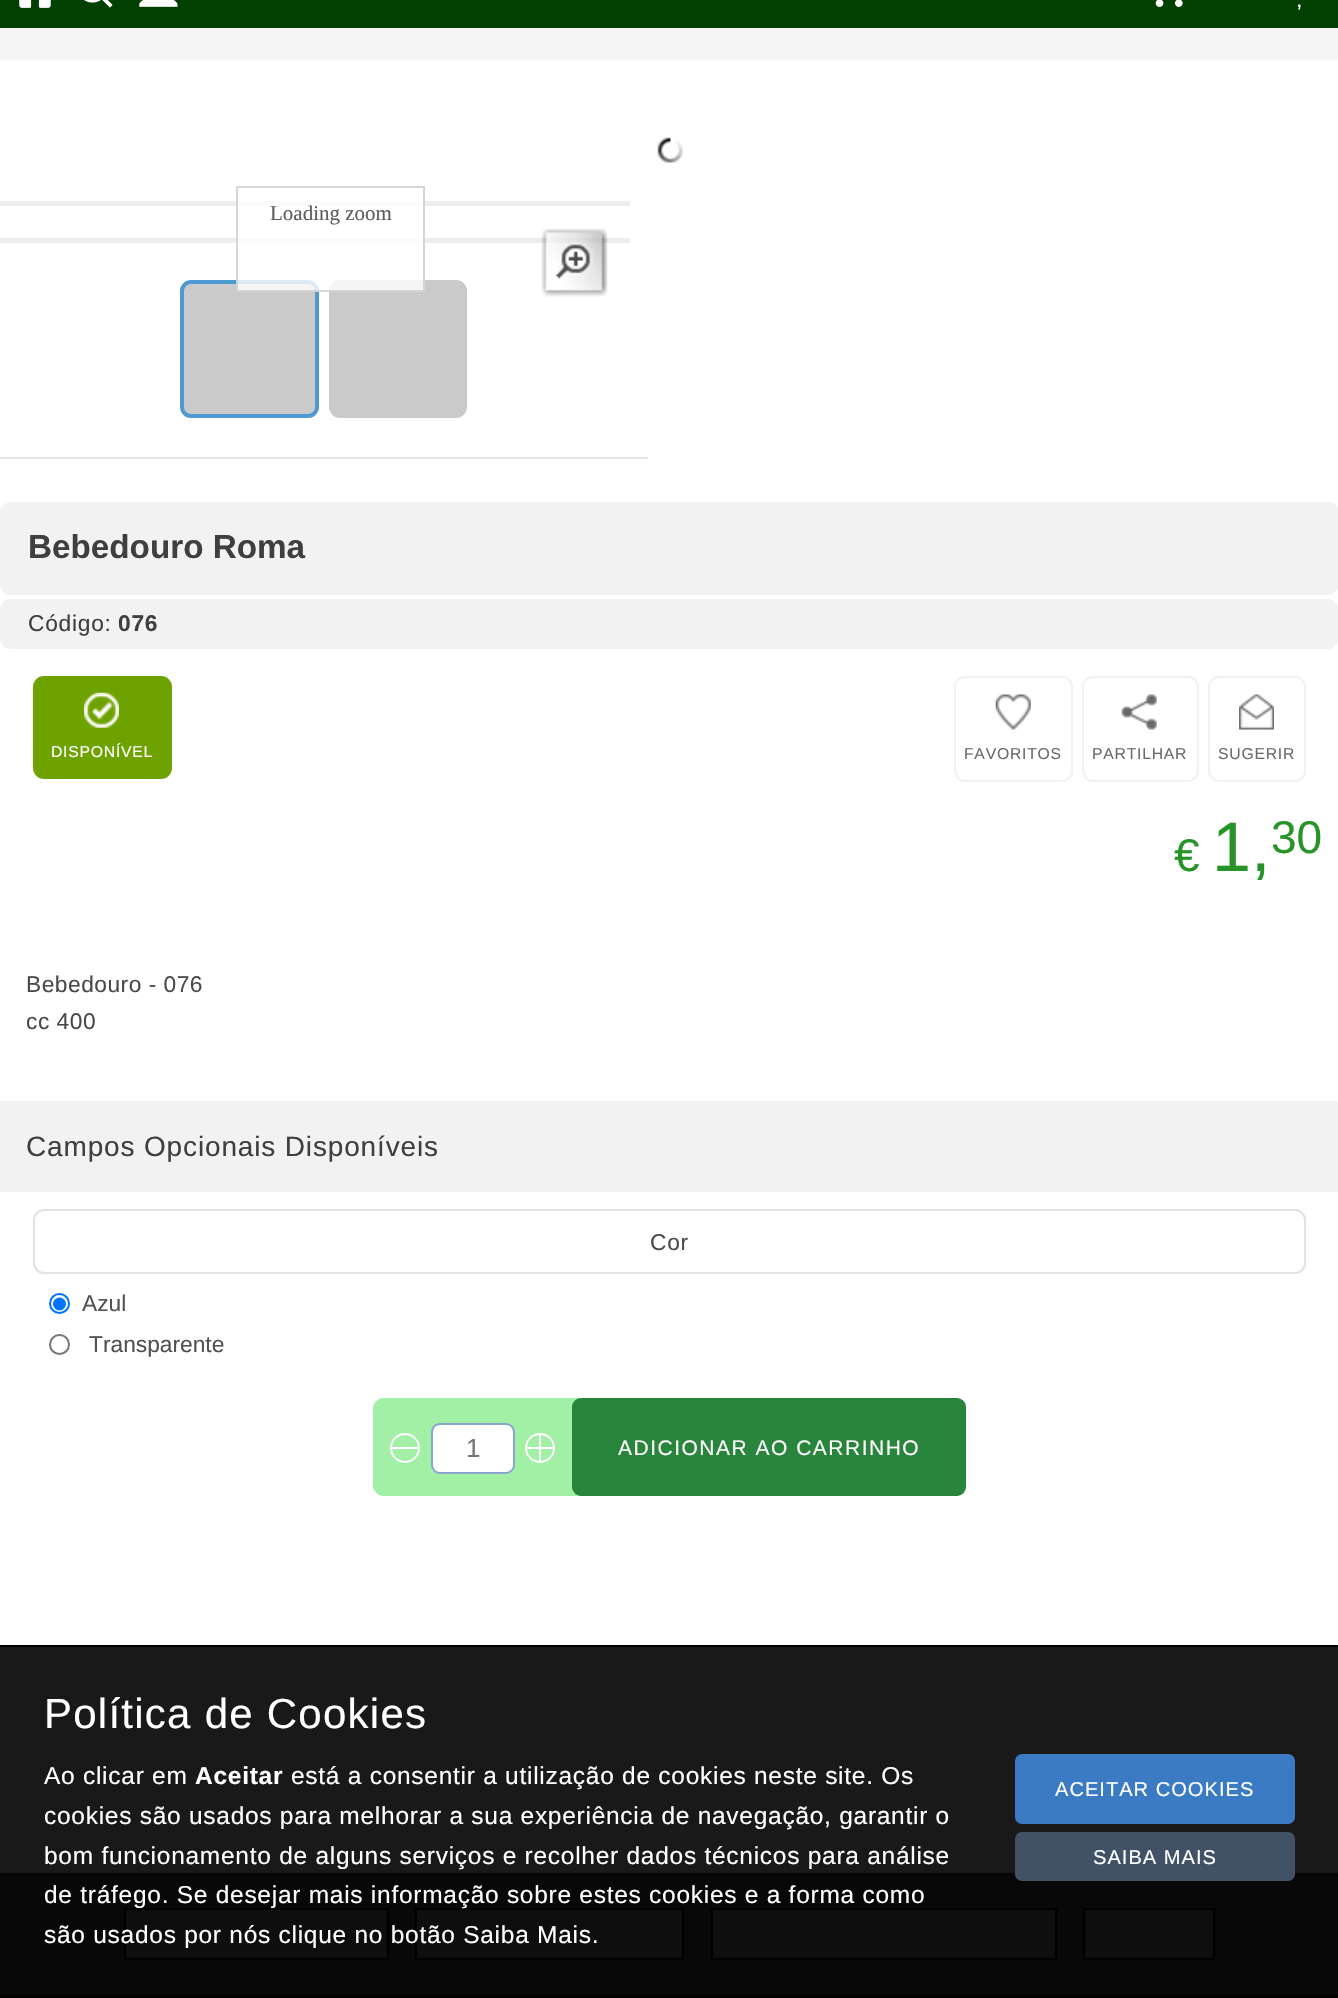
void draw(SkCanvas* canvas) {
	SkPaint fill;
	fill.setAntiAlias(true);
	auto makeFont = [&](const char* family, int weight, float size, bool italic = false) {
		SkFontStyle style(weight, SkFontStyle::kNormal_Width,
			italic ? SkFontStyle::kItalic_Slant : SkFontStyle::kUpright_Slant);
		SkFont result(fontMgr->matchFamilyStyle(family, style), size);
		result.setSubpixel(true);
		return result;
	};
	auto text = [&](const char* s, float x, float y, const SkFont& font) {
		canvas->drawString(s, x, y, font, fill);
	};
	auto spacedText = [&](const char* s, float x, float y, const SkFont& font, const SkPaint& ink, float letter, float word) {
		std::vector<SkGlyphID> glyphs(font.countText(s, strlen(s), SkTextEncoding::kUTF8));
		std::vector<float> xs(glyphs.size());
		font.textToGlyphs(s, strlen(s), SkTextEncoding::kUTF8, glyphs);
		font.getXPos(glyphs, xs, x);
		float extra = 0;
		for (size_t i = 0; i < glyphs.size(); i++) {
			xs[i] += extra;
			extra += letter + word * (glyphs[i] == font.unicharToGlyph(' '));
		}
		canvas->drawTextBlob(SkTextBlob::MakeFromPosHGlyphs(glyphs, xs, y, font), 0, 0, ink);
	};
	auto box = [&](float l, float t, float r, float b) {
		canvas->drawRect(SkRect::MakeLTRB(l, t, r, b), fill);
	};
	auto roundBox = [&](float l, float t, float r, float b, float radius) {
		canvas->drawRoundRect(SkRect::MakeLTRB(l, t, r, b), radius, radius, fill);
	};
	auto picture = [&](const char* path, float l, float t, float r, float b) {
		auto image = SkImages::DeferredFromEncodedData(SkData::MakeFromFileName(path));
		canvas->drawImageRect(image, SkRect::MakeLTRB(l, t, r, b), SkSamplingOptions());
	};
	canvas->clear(0xFFFFFFFF);
	fill.setColor(0xFF191919);
	box(0, 1647, 1338, 1873);
	fill.setColor(0xFF014000);
	box(0, 0, 1338, 28);
	picture("image0.png", 19, 0, 51, 8);
	picture("image1.png", 84, 0, 113, 8);
	picture("image2.png", 139, 0, 178, 7);
	picture("image3.png", 1155, 0, 1183, 7);
	fill.setColor(0xFFF5F5F5);
	box(0, 28, 1338, 60);
	picture("image4.png", 657, 137, 683, 163);
	fill.setColor(0xFFEDEDED);
	box(0, 201, 630, 206);
	box(0, 238, 630, 243);
	fill.setColor(0xFFCACACA);
	canvas->drawRoundRect(SkRect::MakeLTRB(182, 282, 317, 416), 9, 9, fill);
	fill.setStyle(SkPaint::kStroke_Style);
	fill.setStrokeWidth(4);
	fill.setColor(0xFF4D99D2);
	canvas->drawRoundRect(SkRect::MakeLTRB(182, 282, 317, 416), 9, 9, fill);
	fill.setStyle(SkPaint::kFill_Style);
	fill.setColor(0xFFCACACA);
	canvas->drawRoundRect(SkRect::MakeLTRB(331, 282, 465, 416), 9, 9, fill);
	fill.setStyle(SkPaint::kStroke_Style);
	canvas->drawRoundRect(SkRect::MakeLTRB(331, 282, 465, 416), 9, 9, fill);
	fill.setStyle(SkPaint::kFill_Style);
	fill.setColor(0xCCFFFFFF);
	box(236, 201, 425, 292);
	fill.setStyle(SkPaint::kStroke_Style);
	fill.setStrokeWidth(2);
	fill.setColor(0xCCCCCCCC);
	canvas->drawRect(SkRect::MakeLTRB(237, 187, 424, 291), fill);
	picture("image5.png", 541, 229, 608, 297);
	fill.setStyle(SkPaint::kFill_Style);
	fill.setColor(0xFFE6E6E6);
	box(0, 457, 648, 459);
	fill.setColor(0xFFF2F2F2);
	canvas->drawRoundRect(SkRect::MakeLTRB(1, 503, 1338, 594), 10, 10, fill);
	fill.setStyle(SkPaint::kStroke_Style);
	canvas->drawRoundRect(SkRect::MakeLTRB(1, 503, 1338, 594), 10, 10, fill);
	fill.setStyle(SkPaint::kFill_Style);
	canvas->drawRoundRect(SkRect::MakeLTRB(1, 600, 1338, 648), 10, 10, fill);
	fill.setStyle(SkPaint::kStroke_Style);
	canvas->drawRoundRect(SkRect::MakeLTRB(1, 600, 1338, 648), 10, 10, fill);
	fill.setStyle(SkPaint::kFill_Style);
	fill.setColor(0xFF6EA200);
	roundBox(33, 676, 172, 779, 11);
	picture("image6.png", 84, 692, 119, 728);
	fill.setStyle(SkPaint::kStroke_Style);
	fill.setColor(0xFFF2F2F2);
	canvas->drawRoundRect(SkRect::MakeLTRB(955, 677, 1072, 781), 10, 10, fill);
	picture("image7.png", 995, 694, 1031, 730);
	canvas->drawRoundRect(SkRect::MakeLTRB(1083, 677, 1198, 781), 10, 10, fill);
	picture("image8.png", 1121, 694, 1157, 730);
	canvas->drawRoundRect(SkRect::MakeLTRB(1209, 677, 1305, 781), 10, 10, fill);
	picture("image9.png", 1239, 694, 1274, 730);
	fill.setStyle(SkPaint::kFill_Style);
	box(0, 1101, 1338, 1192);
	fill.setStyle(SkPaint::kStroke_Style);
	fill.setColor(0xFFE2E2E2);
	canvas->drawRoundRect(SkRect::MakeLTRB(34, 1210, 1305, 1273), 10, 10, fill);
	fill.setColor(0xFF0075FF);
	canvas->drawCircle(59.5f, 1303.5f, 9.5f, fill);
	fill.setStyle(SkPaint::kFill_Style);
	canvas->drawCircle(59.5f, 1304, 6.5f, fill);
	fill.setStyle(SkPaint::kStroke_Style);
	fill.setColor(0xFF767676);
	canvas->drawCircle(59.5f, 1344.5f, 9.5f, fill);
	fill.setStyle(SkPaint::kFill_Style);
	fill.setColor(0xFFA1F0A6);
	roundBox(373, 1398, 966, 1496, 11);
	fill.setStyle(SkPaint::kStroke_Style);
	fill.setColor(0xFFFFFFFF);
	canvas->drawCircle(405, 1448, 14, fill);
	fill.setStyle(SkPaint::kFill_Style);
	box(392, 1447, 418, 1449);
	canvas->drawRoundRect(SkRect::MakeLTRB(432, 1424, 514, 1473), 8, 8, fill);
	fill.setStyle(SkPaint::kStroke_Style);
	fill.setColor(0xFF88A4CF);
	canvas->drawRoundRect(SkRect::MakeLTRB(432, 1424, 514, 1473), 8, 8, fill);
	fill.setColor(0xFFFFFFFF);
	canvas->drawCircle(540, 1448, 14, fill);
	fill.setStyle(SkPaint::kFill_Style);
	box(539, 1435, 541, 1461);
	box(527, 1447, 553, 1449);
	fill.setColor(0xFF29853B);
	canvas->drawRoundRect(SkRect::MakeLTRB(573, 1399, 965, 1495), 8, 8, fill);
	fill.setStyle(SkPaint::kStroke_Style);
	canvas->drawRoundRect(SkRect::MakeLTRB(573, 1399, 965, 1495), 8, 8, fill);
	fill.setStyle(SkPaint::kFill_Style);
	fill.setColor(0xFF000000);
	box(0, 1645, 1338, 1647);
	fill.setColor(0xFF3B7BC4);
	roundBox(1015, 1754, 1295, 1824, 7);
	fill.setColor(0xFF080808);
	box(0, 1873, 1338, 1995);
	fill.setColor(0xFF425266);
	roundBox(1015, 1832, 1295, 1881, 7);
	fill.setColor(0xFF0E0E0E);
	canvas->drawRect(SkRect::MakeLTRB(125, 1909, 388, 1959), fill);
	fill.setStyle(SkPaint::kStroke_Style);
	fill.setColor(0xFF000000);
	canvas->drawRect(SkRect::MakeLTRB(125, 1909, 388, 1959), fill);
	fill.setStyle(SkPaint::kFill_Style);
	fill.setColor(0xFF0E0E0E);
	canvas->drawRect(SkRect::MakeLTRB(416, 1909, 683, 1959), fill);
	fill.setStyle(SkPaint::kStroke_Style);
	fill.setColor(0xFF000000);
	canvas->drawRect(SkRect::MakeLTRB(416, 1909, 683, 1959), fill);
	fill.setStyle(SkPaint::kFill_Style);
	fill.setColor(0xFF0E0E0E);
	canvas->drawRect(SkRect::MakeLTRB(712, 1909, 1056, 1959), fill);
	fill.setStyle(SkPaint::kStroke_Style);
	fill.setColor(0xFF000000);
	canvas->drawRect(SkRect::MakeLTRB(712, 1909, 1056, 1959), fill);
	fill.setStyle(SkPaint::kFill_Style);
	fill.setColor(0xFF0E0E0E);
	canvas->drawRect(SkRect::MakeLTRB(1084, 1909, 1214, 1959), fill);
	fill.setStyle(SkPaint::kStroke_Style);
	fill.setColor(0xFF000000);
	canvas->drawRect(SkRect::MakeLTRB(1084, 1909, 1214, 1959), fill);
	fill.setStyle(SkPaint::kFill_Style);
	box(0, 1995, 1338, 1998);
	auto font1 = makeFont("Liberation Sans", 700, 15.75f);
	fill.setColor(0xFFFFFFFF);
	spacedText(",", 1297, 7, font1, fill, 0.75f, 0);
	auto font2 = makeFont("Liberation Serif", 400, 21);
	fill.setColor(0xFF5C5C5C);
	text("Loading zoom", 270, 220, font2);
	auto font3 = makeFont("Liberation Sans", 700, 33.25f);
	fill.setColor(0xFF3F3F3F);
	text("Bebedouro Roma", 28, 558, font3);
	auto font4 = makeFont("Liberation Sans", 400, 22.75f);
	spacedText("Código:", 28, 631, font4, fill, 0.75f, 0);
	auto font5 = makeFont("Liberation Sans", 700, 22.75f);
	spacedText("076", 118, 631, font5, fill, 0.75f, 0);
	auto font6 = makeFont("Liberation Sans", 400, 15.75f);
	fill.setColor(0xFFFFFFFF);
	spacedText("DISPONÍVEL", 51, 757, font6, fill, 0.75f, 0);
	fill.setColor(0xFF696969);
	spacedText("FAVORITOS", 964, 759, font6, fill, 0.75f, 0);
	spacedText("PARTILHAR", 1092, 759, font6, fill, 0.75f, 0);
	spacedText("SUGERIR", 1218, 759, font6, fill, 0.75f, 0);
	auto font7 = makeFont("Liberation Sans", 400, 46);
	fill.setColor(0xFF269426);
	text("€", 1174, 871, font7);
	auto font8 = makeFont("Liberation Sans", 400, 70);
	text("1,", 1212, 871, font8);
	text("30", 1271, 853, font7);
	fill.setColor(0xFF4A4A4A);
	spacedText("Bebedouro - 076", 26, 992, font4, fill, 0.5f, 0);
	spacedText("cc 400", 26, 1029, font4, fill, 0.5f, 0);
	auto font9 = makeFont("Liberation Sans", 400, 28);
	fill.setColor(0xFF3F3F3F);
	spacedText("Campos Opcionais Disponíveis", 26, 1156, font9, fill, 0.85f, 0);
	fill.setColor(0xFF4A4A4A);
	spacedText("Cor", 650, 1250, font4, fill, 0.75f, 0);
	fill.setColor(0xFF525252);
	text("Azul", 82, 1311, font4);
	text("Transparente", 89, 1352, font4);
	auto font10 = makeFont("Liberation Sans", 400, 26);
	fill.setColor(0xFF757575);
	text("1", 466, 1457, font10);
	auto font11 = makeFont("Liberation Sans", 400, 21);
	fill.setColor(0xFFFFFFFF);
	spacedText("ADICIONAR AO CARRINHO", 618, 1455, font11, fill, 1.5f, 0);
	auto font12 = makeFont("Liberation Sans", 400, 42);
	spacedText("Política de Cookies", 44, 1728, font12, fill, 1.25f, 0);
	auto font13 = makeFont("Liberation Sans", 400, 24.5f);
	spacedText("Ao clicar em", 44, 1784, font13, fill, 0.73f, 0);
	auto font14 = makeFont("Liberation Sans", 700, 24.5f);
	spacedText("Aceitar", 195, 1784, font14, fill, 0.73f, 0);
	spacedText("está a consentir a utilização de cookies neste site. Os", 291, 1784, font13, fill, 0.73f, 0);
	spacedText("cookies são usados para melhorar a sua experiência de navegação, garantir o", 44, 1824, font13, fill, 0.73f, 0);
	spacedText("bom funcionamento de alguns serviços e recolher dados técnicos para análise", 44, 1864, font13, fill, 0.73f, 0);
	spacedText("de tráfego. Se desejar mais informação sobre estes cookies e a forma como", 44, 1903, font13, fill, 0.73f, 0);
	spacedText("são usados por nós clique no botão Saiba Mais.", 44, 1943, font13, fill, 0.73f, 0);
	auto font15 = makeFont("Liberation Sans", 400, 20.1f);
	spacedText("ACEITAR COOKIES", 1055, 1796, font15, fill, 1, 0);
	spacedText("SAIBA MAIS", 1093, 1864, font15, fill, 1, 0);
}
